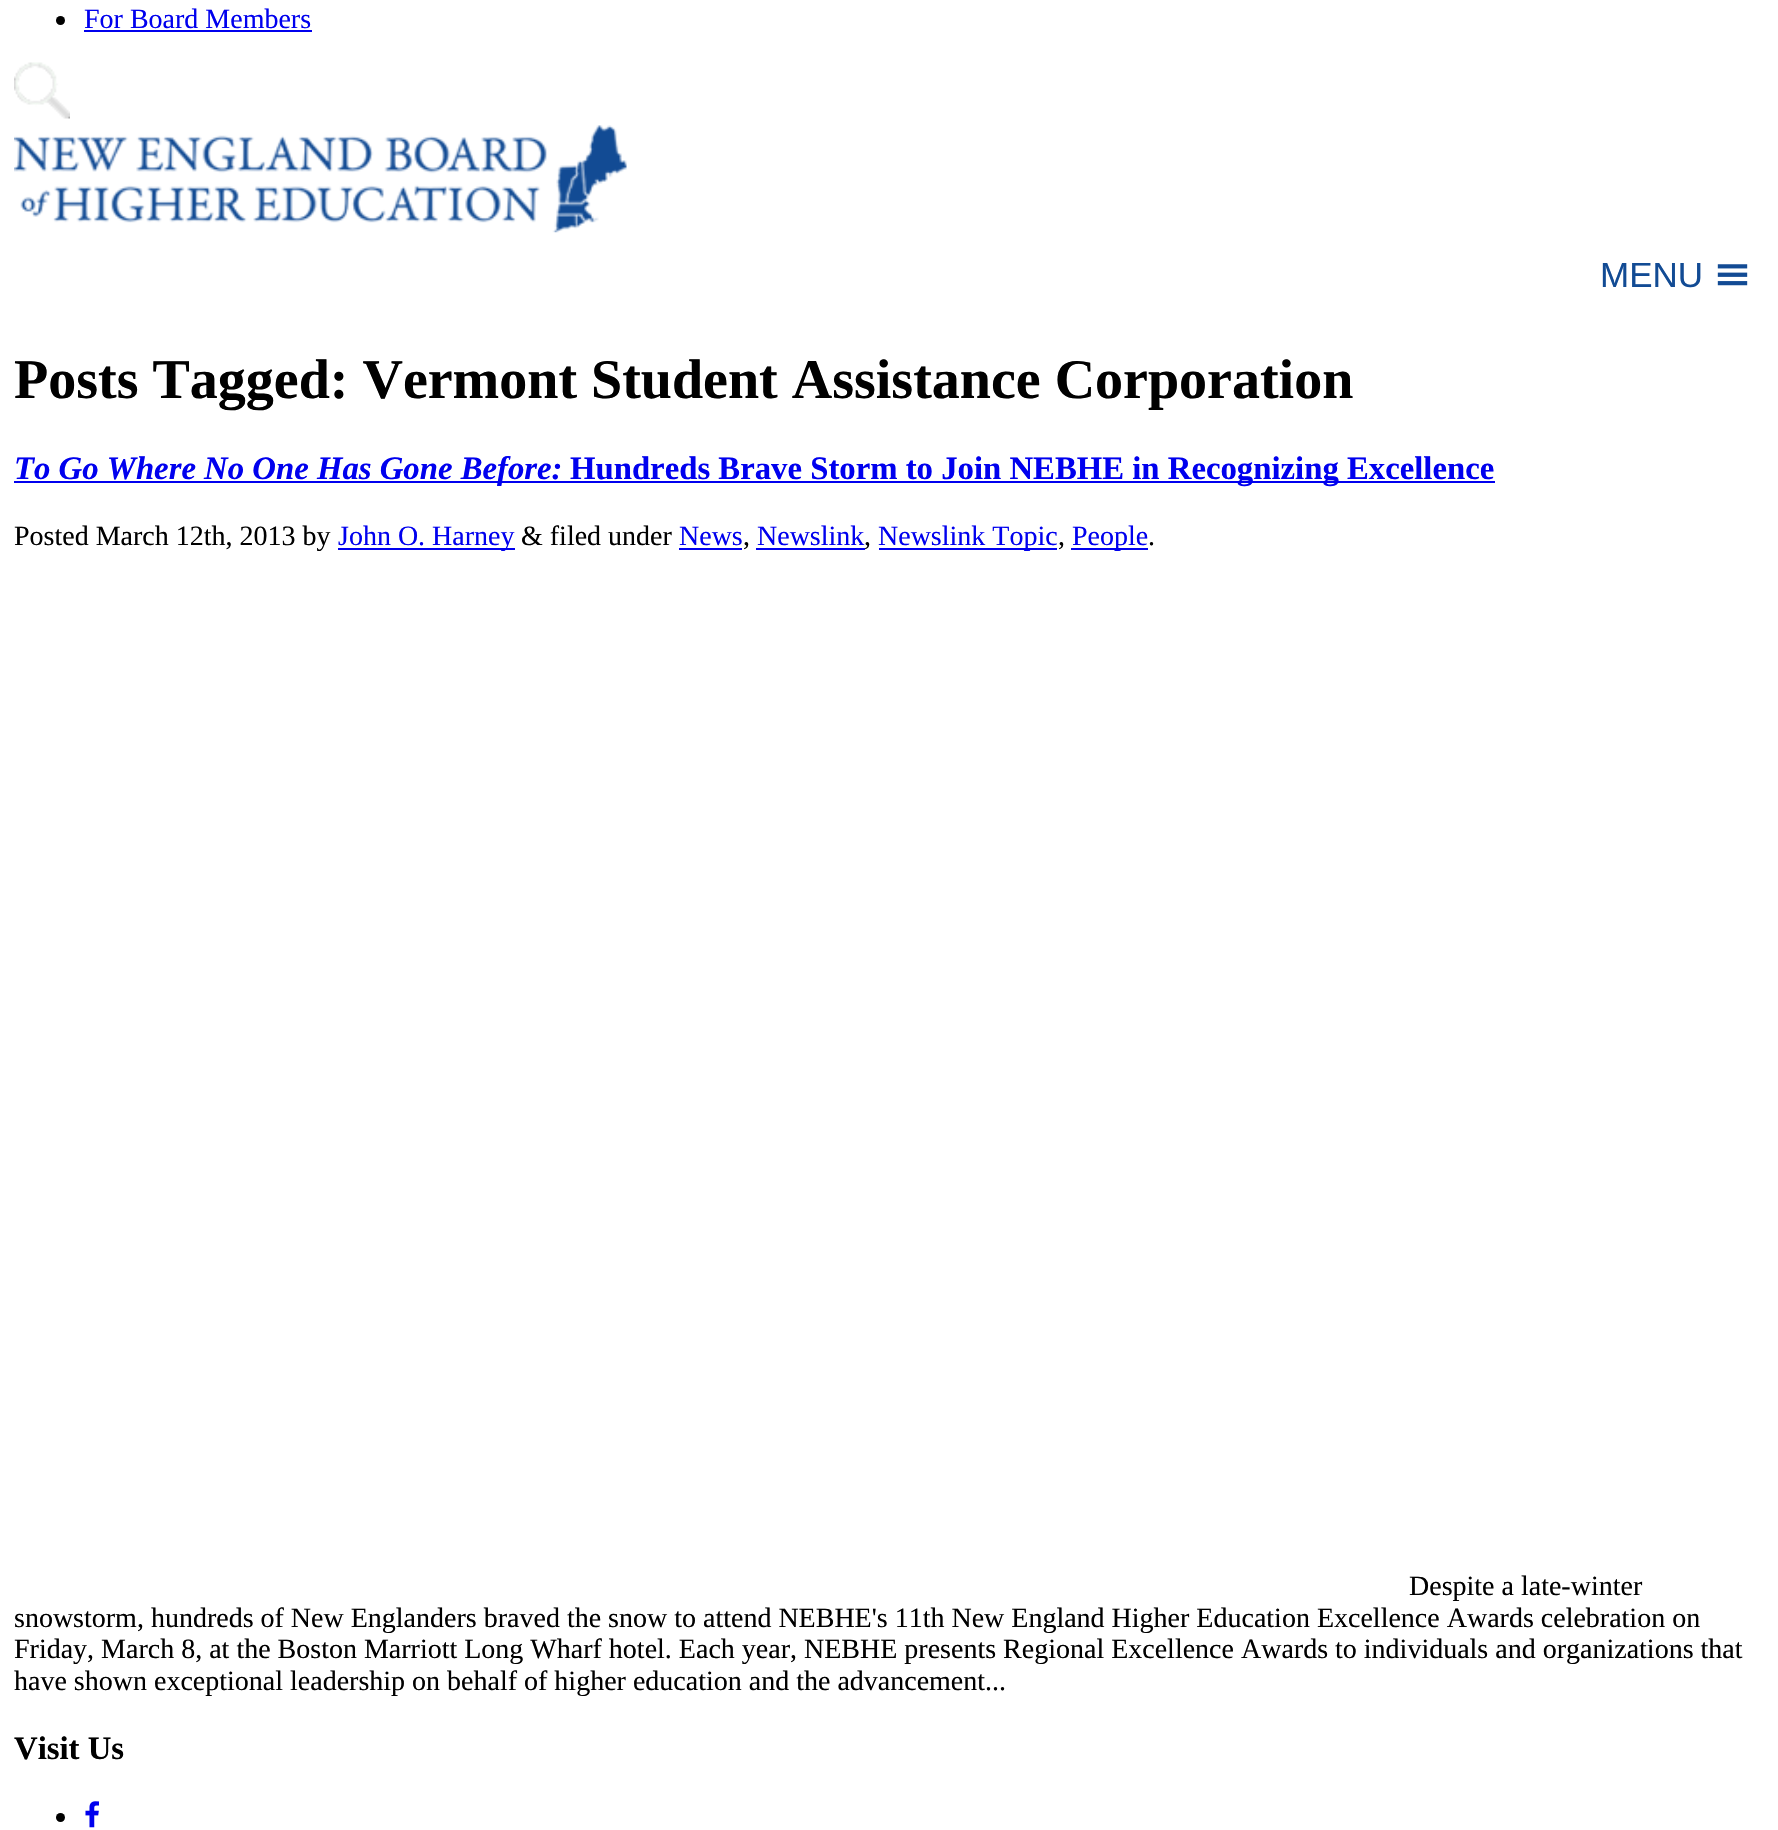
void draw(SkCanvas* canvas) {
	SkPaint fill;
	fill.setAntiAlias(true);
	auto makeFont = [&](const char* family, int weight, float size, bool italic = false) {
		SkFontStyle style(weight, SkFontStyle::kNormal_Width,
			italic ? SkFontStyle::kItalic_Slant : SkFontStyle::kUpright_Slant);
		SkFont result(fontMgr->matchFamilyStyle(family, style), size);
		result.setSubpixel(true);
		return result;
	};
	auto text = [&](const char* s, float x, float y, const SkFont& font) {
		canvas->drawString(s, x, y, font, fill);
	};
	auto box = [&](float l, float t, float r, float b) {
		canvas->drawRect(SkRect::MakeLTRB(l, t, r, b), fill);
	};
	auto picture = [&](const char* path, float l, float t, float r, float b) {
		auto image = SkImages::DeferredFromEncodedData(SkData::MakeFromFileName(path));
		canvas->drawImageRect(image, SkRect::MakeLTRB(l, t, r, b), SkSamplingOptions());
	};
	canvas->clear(0xFFFFFFFF);
	fill.setColor(0xFF000000);
	canvas->drawCircle(60.5f, 20.5f, 4.5f, fill);
	fill.setColor(0xFF0000EE);
	box(84, 30, 312, 32);
	picture("image0.png", 14, 62, 70, 119);
	picture("image1.png", 14, 125, 627, 233);
	picture("image2.png", 1717, 264, 1748, 286);
	box(14, 481, 1495, 483);
	box(338, 548, 515, 550);
	box(679, 548, 742, 550);
	box(756, 548, 865, 550);
	box(879, 548, 1057, 550);
	box(1071, 548, 1148, 550);
	fill.setColor(0xFF000000);
	canvas->drawCircle(60.5f, 1817.5f, 4.5f, fill);
	picture("image3.png", 85, 1801, 99, 1828);
	auto font1 = makeFont("Liberation Serif", 400, 28);
	fill.setColor(0xFF0000EE);
	text("For Board Members", 84, 28, font1);
	auto font2 = makeFont("Liberation Sans", 400, 35);
	fill.setColor(0xFF124B94);
	text("MENU", 1600, 287, font2);
	auto font3 = makeFont("Liberation Serif", 700, 56);
	fill.setColor(0xFF000000);
	text("Posts Tagged: Vermont Student Assistance Corporation", 14, 398, font3);
	auto font4 = makeFont("Liberation Serif", 700, 32.75f, true);
	fill.setColor(0xFF0000EE);
	text("To Go Where No One Has Gone Before:", 14, 479, font4);
	auto font5 = makeFont("Liberation Serif", 700, 32.75f);
	text("Hundreds Brave Storm to Join NEBHE in Recognizing Excellence", 570, 479, font5);
	fill.setColor(0xFF000000);
	text("Posted March 12th, 2013 by", 14, 545, font1);
	fill.setColor(0xFF0000EE);
	text("John O. Harney", 338, 545, font1);
	fill.setColor(0xFF000000);
	text("& filed under", 521, 545, font1);
	fill.setColor(0xFF0000EE);
	text("News", 679, 545, font1);
	fill.setColor(0xFF000000);
	text(",", 743, 545, font1);
	fill.setColor(0xFF0000EE);
	text("Newslink", 757, 545, font1);
	fill.setColor(0xFF000000);
	text(",", 864, 545, font1);
	fill.setColor(0xFF0000EE);
	text("Newslink Topic", 878, 545, font1);
	fill.setColor(0xFF000000);
	text(",", 1058, 545, font1);
	fill.setColor(0xFF0000EE);
	text("People", 1072, 545, font1);
	fill.setColor(0xFF000000);
	text(".", 1148, 545, font1);
	text("Despite a late-winter", 1409, 1595, font1);
	text("snowstorm, hundreds of New Englanders braved the snow to attend NEBHE's 11th New England Higher Education Excellence Awards celebration on", 14, 1627, font1);
	text("Friday, March 8, at the Boston Marriott Long Wharf hotel. Each year, NEBHE presents Regional Excellence Awards to individuals and organizations that", 14, 1658, font1);
	text("have shown exceptional leadership on behalf of higher education and the advancement...", 14, 1690, font1);
	text("Visit Us", 14, 1759, font5);
}
